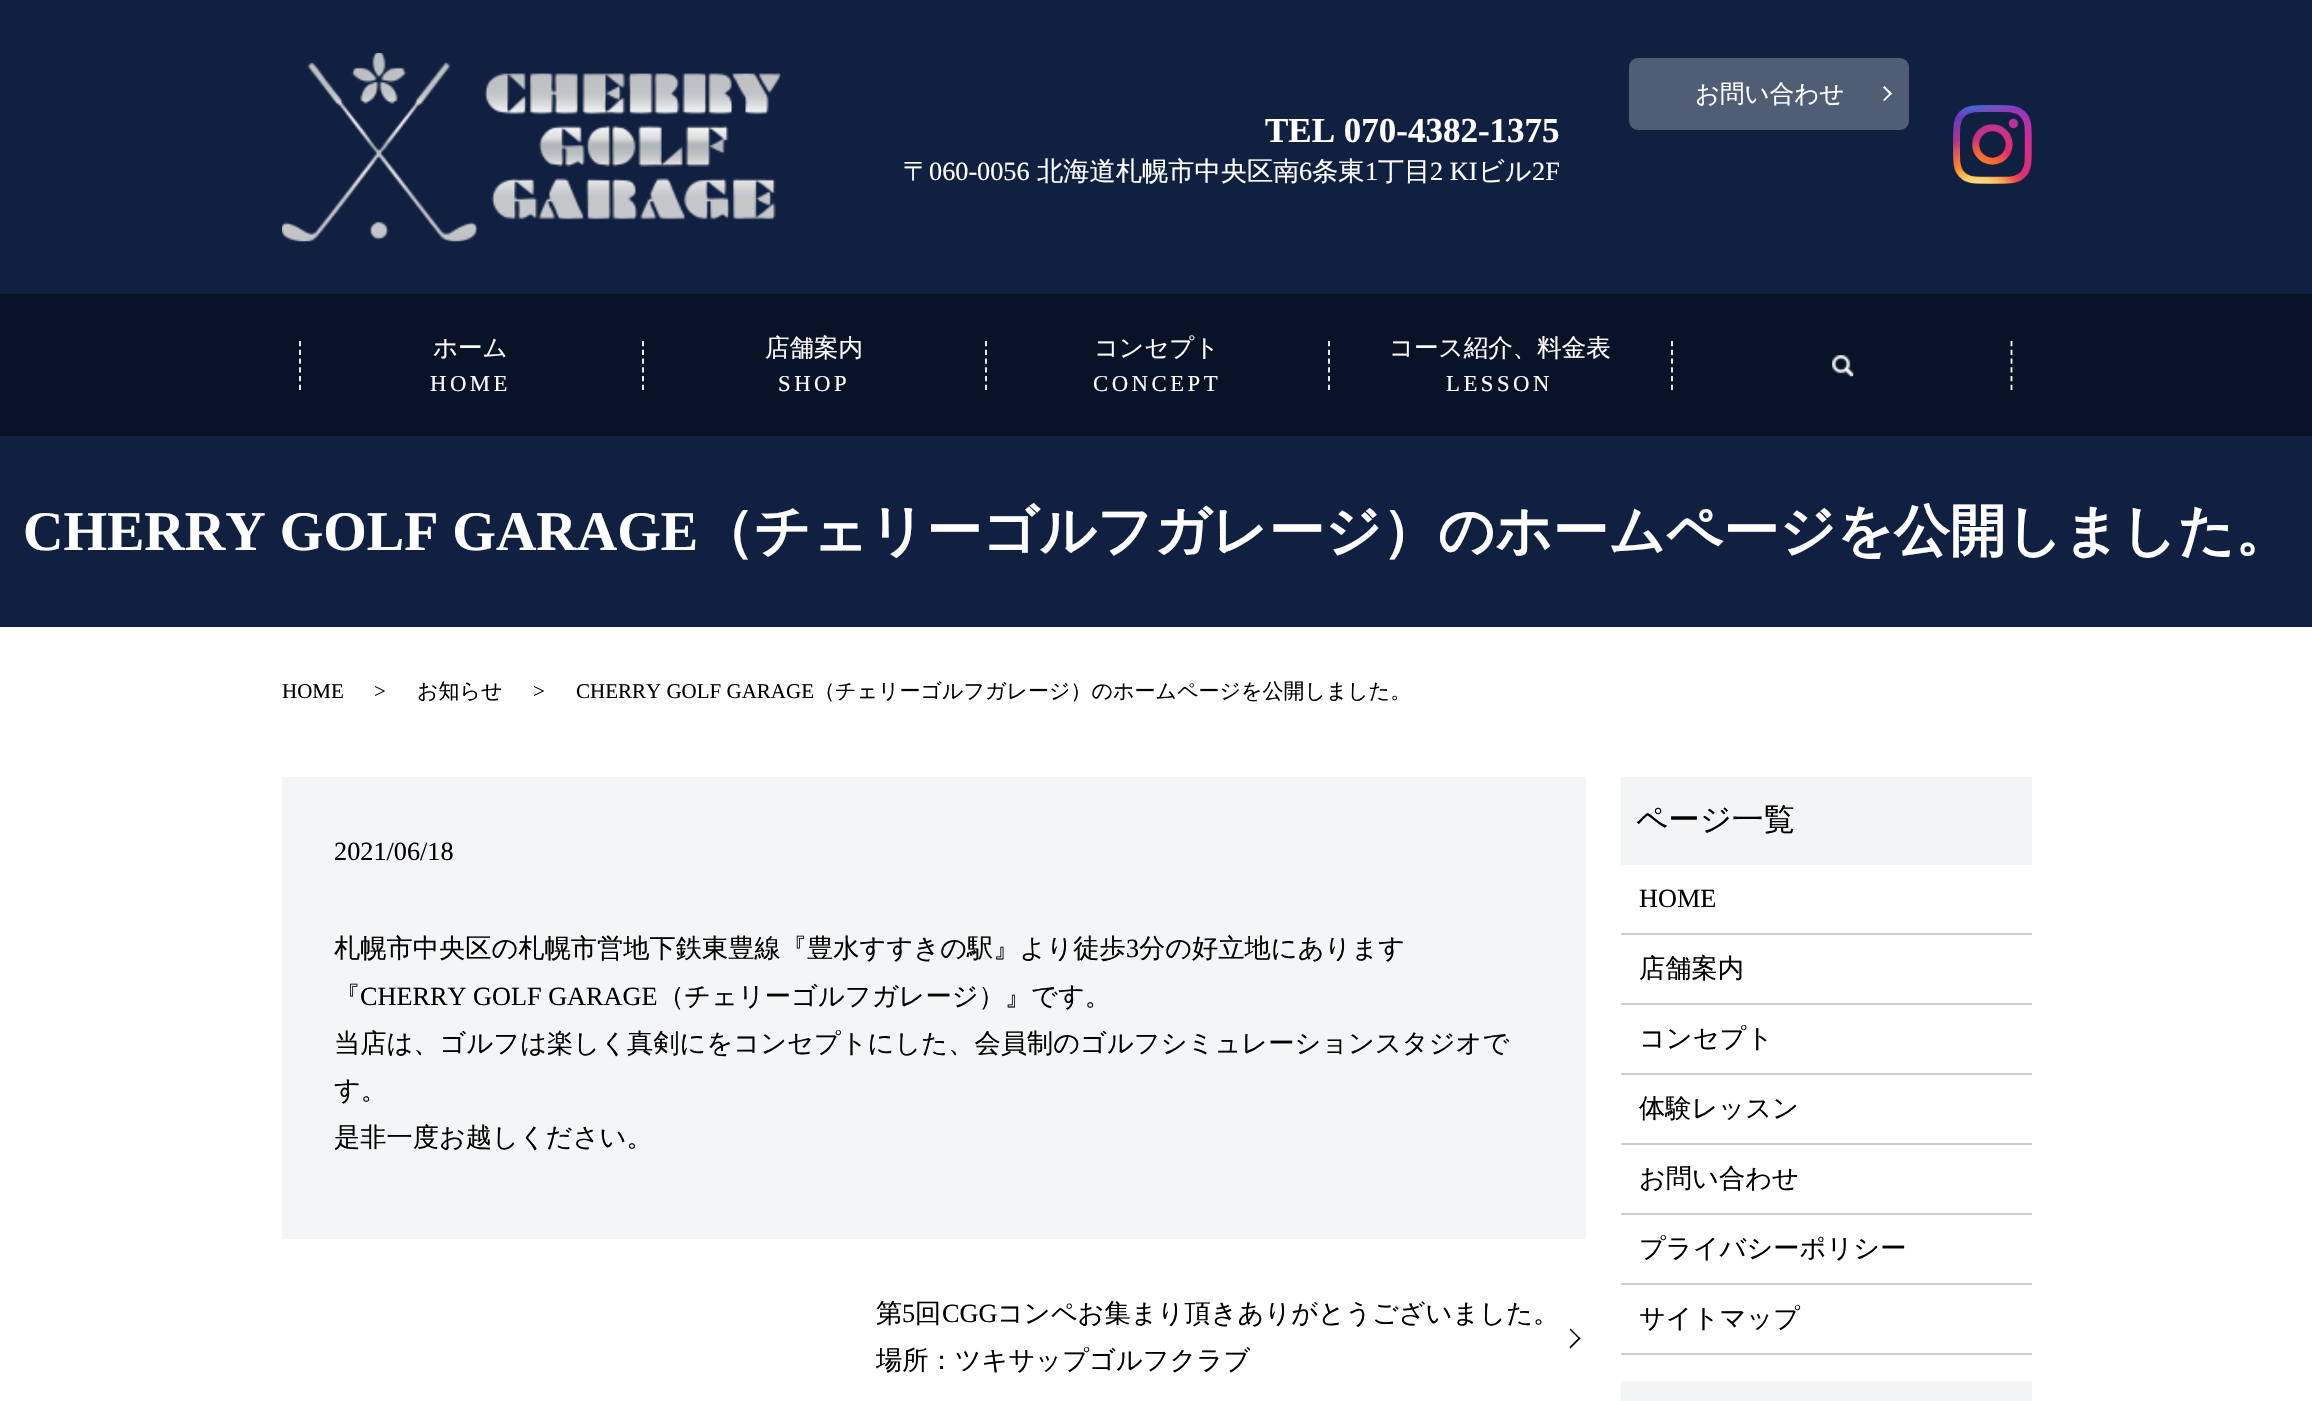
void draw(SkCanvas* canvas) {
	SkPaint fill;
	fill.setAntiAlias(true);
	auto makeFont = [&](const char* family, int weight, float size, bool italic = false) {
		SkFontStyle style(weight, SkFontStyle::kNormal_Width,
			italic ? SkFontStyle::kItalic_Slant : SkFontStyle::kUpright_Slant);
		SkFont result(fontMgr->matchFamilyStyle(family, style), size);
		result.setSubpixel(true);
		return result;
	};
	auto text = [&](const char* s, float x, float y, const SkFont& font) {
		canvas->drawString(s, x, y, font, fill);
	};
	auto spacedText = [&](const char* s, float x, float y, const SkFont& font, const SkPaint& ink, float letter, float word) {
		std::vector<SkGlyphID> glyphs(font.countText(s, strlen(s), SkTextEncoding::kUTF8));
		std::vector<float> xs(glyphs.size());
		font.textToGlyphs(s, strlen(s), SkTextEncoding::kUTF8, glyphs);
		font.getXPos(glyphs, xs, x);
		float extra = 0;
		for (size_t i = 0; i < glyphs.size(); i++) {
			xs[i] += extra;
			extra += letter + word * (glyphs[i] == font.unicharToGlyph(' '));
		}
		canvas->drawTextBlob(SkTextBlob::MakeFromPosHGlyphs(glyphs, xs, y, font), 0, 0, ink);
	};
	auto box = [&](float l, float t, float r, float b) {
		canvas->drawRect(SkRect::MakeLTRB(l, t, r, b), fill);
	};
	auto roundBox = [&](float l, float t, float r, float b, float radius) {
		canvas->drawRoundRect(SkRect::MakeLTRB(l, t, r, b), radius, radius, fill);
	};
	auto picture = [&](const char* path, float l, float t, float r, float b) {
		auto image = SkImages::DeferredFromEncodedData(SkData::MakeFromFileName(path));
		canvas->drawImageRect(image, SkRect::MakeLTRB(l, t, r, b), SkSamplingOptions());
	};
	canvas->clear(0xFFFFFFFF);
	fill.setColor(0xFF102040);
	box(0, 0, 2312, 294);
	fill.setColor(0xFF081327);
	box(0, 294, 2312, 436);
	fill.setColor(0xFF4F5E75);
	roundBox(1629, 58, 1909, 130, 9);
	fill.setColor(0xFFFFFFFF);
	canvas->drawPath(SkPathBuilder().moveTo(1884.5f, 86).lineTo(1892, 93.5f).lineTo(1890.5f, 95).lineTo(1883, 87.5f).close().detach(), fill);
	canvas->drawPath(SkPathBuilder().moveTo(1890.5f, 92.5f).lineTo(1892, 93.5f).lineTo(1884.5f, 101).lineTo(1883, 100).close().detach(), fill);
	fill.setStyle(SkPaint::kStroke_Style);
	fill.setStrokeWidth(1.8f);
	fill.setPathEffect(SkDashPathEffect::Make({{5.25f, 3.5f}}, 0));
	canvas->drawPath(SkPathBuilder().moveTo(300, 341).lineTo(300, 390).detach(), fill);
	fill.setPathEffect(nullptr);
	fill.setPathEffect(SkDashPathEffect::Make({{5.25f, 3.5f}}, 0));
	canvas->drawPath(SkPathBuilder().moveTo(643, 341).lineTo(643, 390).detach(), fill);
	fill.setPathEffect(nullptr);
	fill.setPathEffect(SkDashPathEffect::Make({{5.25f, 3.5f}}, 0));
	canvas->drawPath(SkPathBuilder().moveTo(986, 341).lineTo(986, 390).detach(), fill);
	fill.setPathEffect(nullptr);
	fill.setPathEffect(SkDashPathEffect::Make({{5.25f, 3.5f}}, 0));
	canvas->drawPath(SkPathBuilder().moveTo(1329, 341).lineTo(1329, 390).detach(), fill);
	fill.setPathEffect(nullptr);
	picture("image0.png", 1832, 355, 1854, 377);
	fill.setPathEffect(SkDashPathEffect::Make({{5.25f, 3.5f}}, 0));
	canvas->drawPath(SkPathBuilder().moveTo(1672, 341).lineTo(1672, 390).detach(), fill);
	fill.setPathEffect(nullptr);
	fill.setPathEffect(SkDashPathEffect::Make({{5.25f, 3.5f}}, 0));
	canvas->drawPath(SkPathBuilder().moveTo(2011.5f, 341).lineTo(2011.5f, 390).detach(), fill);
	fill.setPathEffect(nullptr);
	picture("image1.png", 282, 53, 781, 242);
	picture("image2.png", 1953, 105, 2032, 184);
	fill.setStyle(SkPaint::kFill_Style);
	fill.setColor(0xFF102040);
	box(0, 436, 2312, 627);
	fill.setColor(0xFFF4F5F6);
	box(282, 777, 1586, 1239);
	fill.setColor(0xFF000000);
	canvas->drawPath(SkPathBuilder().moveTo(1570.5f, 1328.5f).lineTo(1580.5f, 1338.5f).lineTo(1579.5f, 1339.5f).lineTo(1569.5f, 1329.5f).close().detach(), fill);
	canvas->drawPath(SkPathBuilder().moveTo(1580.5f, 1338.5f).lineTo(1570.5f, 1348.5f).lineTo(1569.5f, 1347).lineTo(1579.5f, 1337).close().detach(), fill);
	fill.setColor(0xFFF3F4F5);
	box(1621, 777, 2032, 865);
	fill.setColor(0xFFCCCCCC);
	box(1621, 933, 2032, 935);
	box(1621, 1003, 2032, 1005);
	box(1621, 1073, 2032, 1075);
	box(1621, 1143, 2032, 1145);
	box(1621, 1213, 2032, 1215);
	box(1621, 1283, 2032, 1285);
	box(1621, 1353, 2032, 1355);
	fill.setColor(0xFFF3F4F5);
	box(1621, 1381, 2032, 1401);
	auto font1 = makeFont("WenQuanYi Zen Hei", 500, 24.5f);
	fill.setColor(0xFFFFFFFF);
	text("お問い合わせ", 1695, 102, font1);
	text("ホーム", 433, 356, font1);
	auto font2 = makeFont("Liberation Serif", 400, 22.75f);
	spacedText("HOME", 430, 391, font2, fill, 3.5f, 0);
	text("店舗案内", 765, 356, font1);
	spacedText("SHOP", 778, 391, font2, fill, 3.5f, 0);
	text("コンセプト", 1094, 356, font1);
	spacedText("CONCEPT", 1093, 391, font2, fill, 3.5f, 0);
	text("コース紹介、料金表", 1389, 356, font1);
	spacedText("LESSON", 1446, 391, font2, fill, 3.5f, 0);
	auto font3 = makeFont("Liberation Serif", 700, 35);
	text("TEL 070-4382-1375", 1265, 142, font3);
	auto font4 = makeFont("WenQuanYi Zen Hei", 500, 26.25f);
	text("〒", 903, 180, font4);
	auto font5 = makeFont("Liberation Serif", 400, 26.25f);
	text("060-0056", 929, 180, font5);
	text("北海道札幌市中央区南", 1037, 180, font4);
	text("6", 1299, 180, font5);
	text("条東", 1312, 180, font4);
	text("1", 1365, 180, font5);
	text("丁目", 1378, 180, font4);
	text("2 KI", 1430, 180, font5);
	text("ビル", 1478, 180, font4);
	text("2F", 1532, 180, font5);
	auto font6 = makeFont("Liberation Serif", 700, 56);
	text("CHERRY GOLF GARAGE", 23, 550, font6);
	auto font7 = makeFont("WenQuanYi Zen Hei", 700, 56);
	text("（チェリーゴルフガレージ）のホームページを公開しました。", 698, 550, font7);
	auto font8 = makeFont("Liberation Serif", 400, 21);
	fill.setColor(0xFF000000);
	text("HOME", 282, 698, font8);
	text(">", 374, 698, font8);
	auto font9 = makeFont("WenQuanYi Zen Hei", 500, 21);
	text("お知らせ", 417, 698, font9);
	text(">", 533, 698, font8);
	text("CHERRY GOLF GARAGE", 576, 698, font8);
	text("（チェリーゴルフガレージ）のホームページを公開しました。", 814, 698, font9);
	text("2021/06/18", 334, 860, font5);
	text("札幌市中央区の札幌市営地下鉄東豊線『豊水すすきの駅』より徒歩", 334, 957, font4);
	text("3", 1126, 957, font5);
	text("分の好立地にあります", 1139, 957, font4);
	text("『", 334, 1005, font4);
	text("CHERRY GOLF GARAGE", 360, 1005, font5);
	text("（チェリーゴルフガレージ）』です。", 658, 1005, font4);
	text("当店は、ゴルフは楽しく真剣にをコンセプトにした、会員制のゴルフシミュレーションスタジオで", 334, 1052, font4);
	text("す。", 334, 1099, font4);
	text("是非一度お越しください。", 334, 1146, font4);
	text("第", 876, 1322, font4);
	text("5", 902, 1322, font5);
	text("回", 915, 1322, font4);
	text("CGG", 942, 1322, font5);
	text("コンペお集まり頂きありがとうございました。", 997, 1322, font4);
	text("場所：ツキサップゴルフクラブ", 876, 1369, font4);
	auto font10 = makeFont("WenQuanYi Zen Hei", 500, 31.5f);
	text("ページ一覧", 1636, 830, font10);
	text("HOME", 1639, 907, font5);
	text("店舗案内", 1639, 977, font4);
	text("コンセプト", 1639, 1047, font4);
	text("体験レッスン", 1639, 1117, font4);
	text("お問い合わせ", 1639, 1187, font4);
	text("プライバシーポリシー", 1639, 1257, font4);
	text("サイトマップ", 1639, 1327, font4);
}
